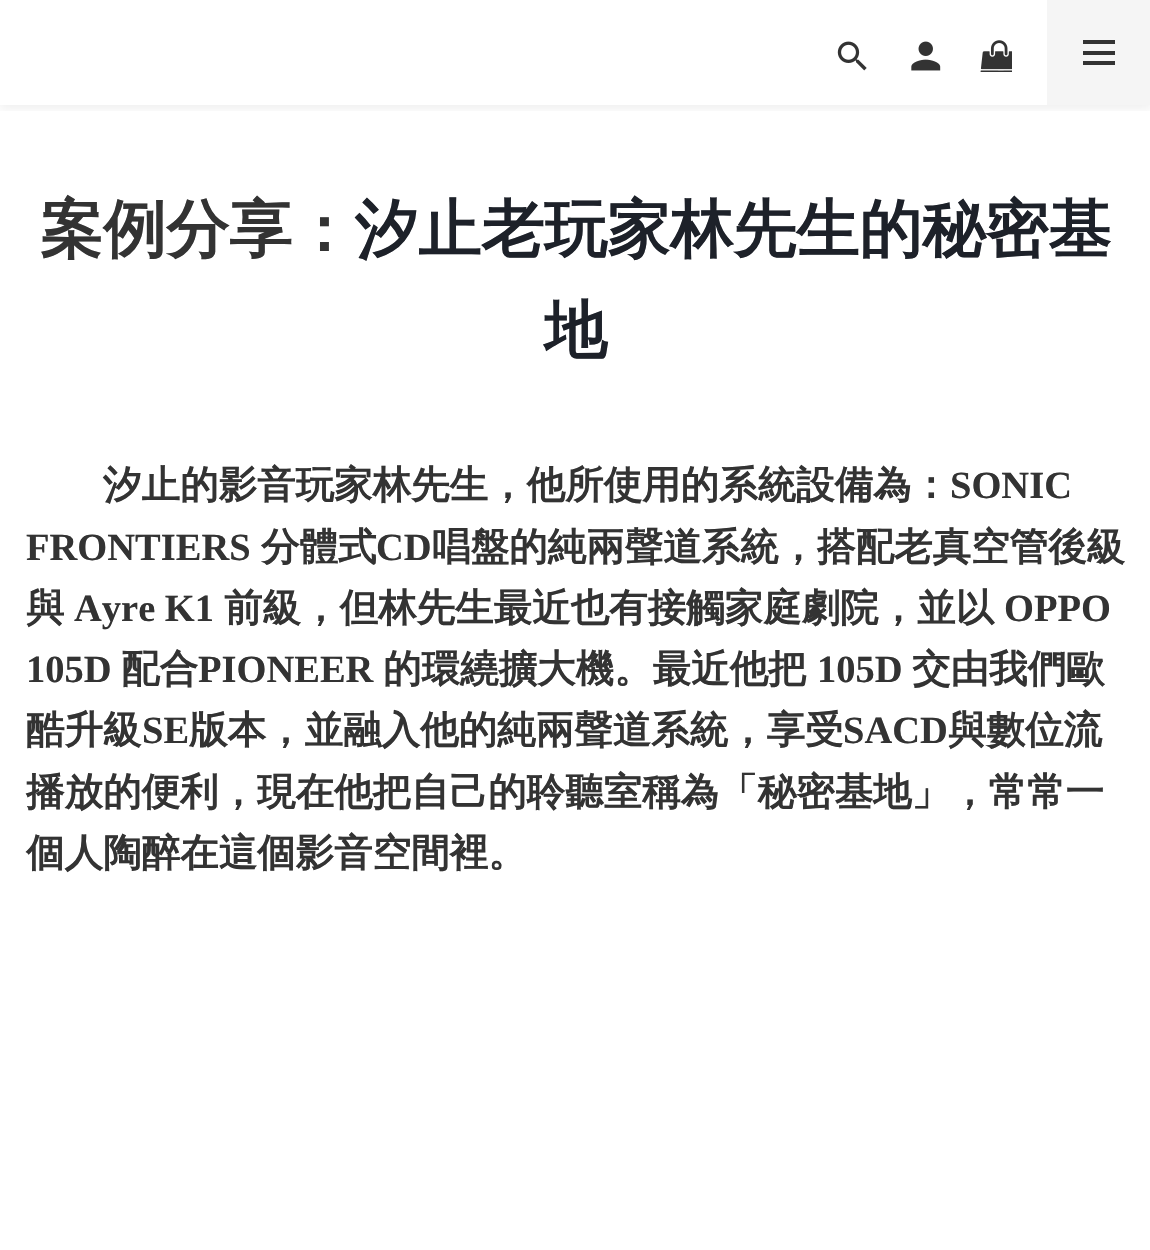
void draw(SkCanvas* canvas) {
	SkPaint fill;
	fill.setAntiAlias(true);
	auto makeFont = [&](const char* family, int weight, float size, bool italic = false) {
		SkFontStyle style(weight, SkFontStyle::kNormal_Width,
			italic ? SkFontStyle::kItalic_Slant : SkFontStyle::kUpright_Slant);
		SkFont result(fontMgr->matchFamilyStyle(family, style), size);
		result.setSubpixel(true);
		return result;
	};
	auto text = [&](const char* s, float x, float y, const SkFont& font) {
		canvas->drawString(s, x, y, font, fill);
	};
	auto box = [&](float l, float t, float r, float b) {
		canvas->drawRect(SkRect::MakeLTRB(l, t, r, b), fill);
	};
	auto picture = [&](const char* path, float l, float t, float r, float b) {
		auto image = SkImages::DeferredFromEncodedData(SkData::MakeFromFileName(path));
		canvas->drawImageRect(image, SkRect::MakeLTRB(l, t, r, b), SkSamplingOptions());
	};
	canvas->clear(0xFFFFFFFF);
	canvas->save();
	canvas->clipRect(SkRect::MakeLTRB(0, 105, 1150, 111));
	fill.setColor(0x0F000000);
	fill.setMaskFilter(SkMaskFilter::MakeBlur(kNormal_SkBlurStyle, 5));
	canvas->drawRect(SkRect::MakeLTRB(0, 4, 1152, 109), fill);
	fill.setMaskFilter(nullptr);
	canvas->restore();
	picture("image0.png", 837, 41, 867, 71);
	picture("image1.png", 911, 41, 941, 71);
	picture("image2.png", 980, 40, 1012, 72);
	fill.setColor(0xFFF5F5F5);
	box(1047, 0, 1150, 105);
	fill.setColor(0xFF333333);
	box(1083, 51, 1115, 55);
	box(1083, 40, 1115, 44);
	box(1083, 61, 1115, 65);
	auto font1 = makeFont("WenQuanYi Zen Hei", 700, 63);
	text("案例分享：", 40, 251, font1);
	fill.setColor(0xFF1D2129);
	text("汐止老玩家林先生的秘密基", 355, 251, font1);
	text("地", 544, 352, font1);
	auto font2 = makeFont("WenQuanYi Zen Hei", 700, 38.5f);
	fill.setColor(0xFF333333);
	text("汐止的影音玩家林先生，他所使用的系統設備為：", 103, 498, font2);
	auto font3 = makeFont("Liberation Serif", 700, 38.5f);
	text("SONIC", 950, 498, font3);
	text("FRONTIERS", 26, 560, font3);
	text("分體式", 261, 560, font2);
	text("CD", 376, 560, font3);
	text("唱盤的純兩聲道系統，搭配老真空管後級", 432, 560, font2);
	text("與", 26, 621, font2);
	text("Ayre K1", 74, 621, font3);
	text("前級，但林先生最近也有接觸家庭劇院，並以", 224, 621, font2);
	text("OPPO", 1004, 621, font3);
	text("105D", 26, 682, font3);
	text("配合", 121, 682, font2);
	text("PIONEER", 198, 682, font3);
	text("的環繞擴大機。最近他把", 383, 682, font2);
	text("105D", 817, 682, font3);
	text("交由我們歐", 912, 682, font2);
	text("酷升級", 26, 743, font2);
	text("SE", 142, 743, font3);
	text("版本，並融入他的純兩聲道系統，享受", 189, 743, font2);
	text("SACD", 843, 743, font3);
	text("與數位流", 948, 743, font2);
	text("播放的便利，現在他把自己的聆聽室稱為「秘密基地」，常常一", 26, 805, font2);
	text("個人陶醉在這個影音空間裡。", 26, 866, font2);
}
